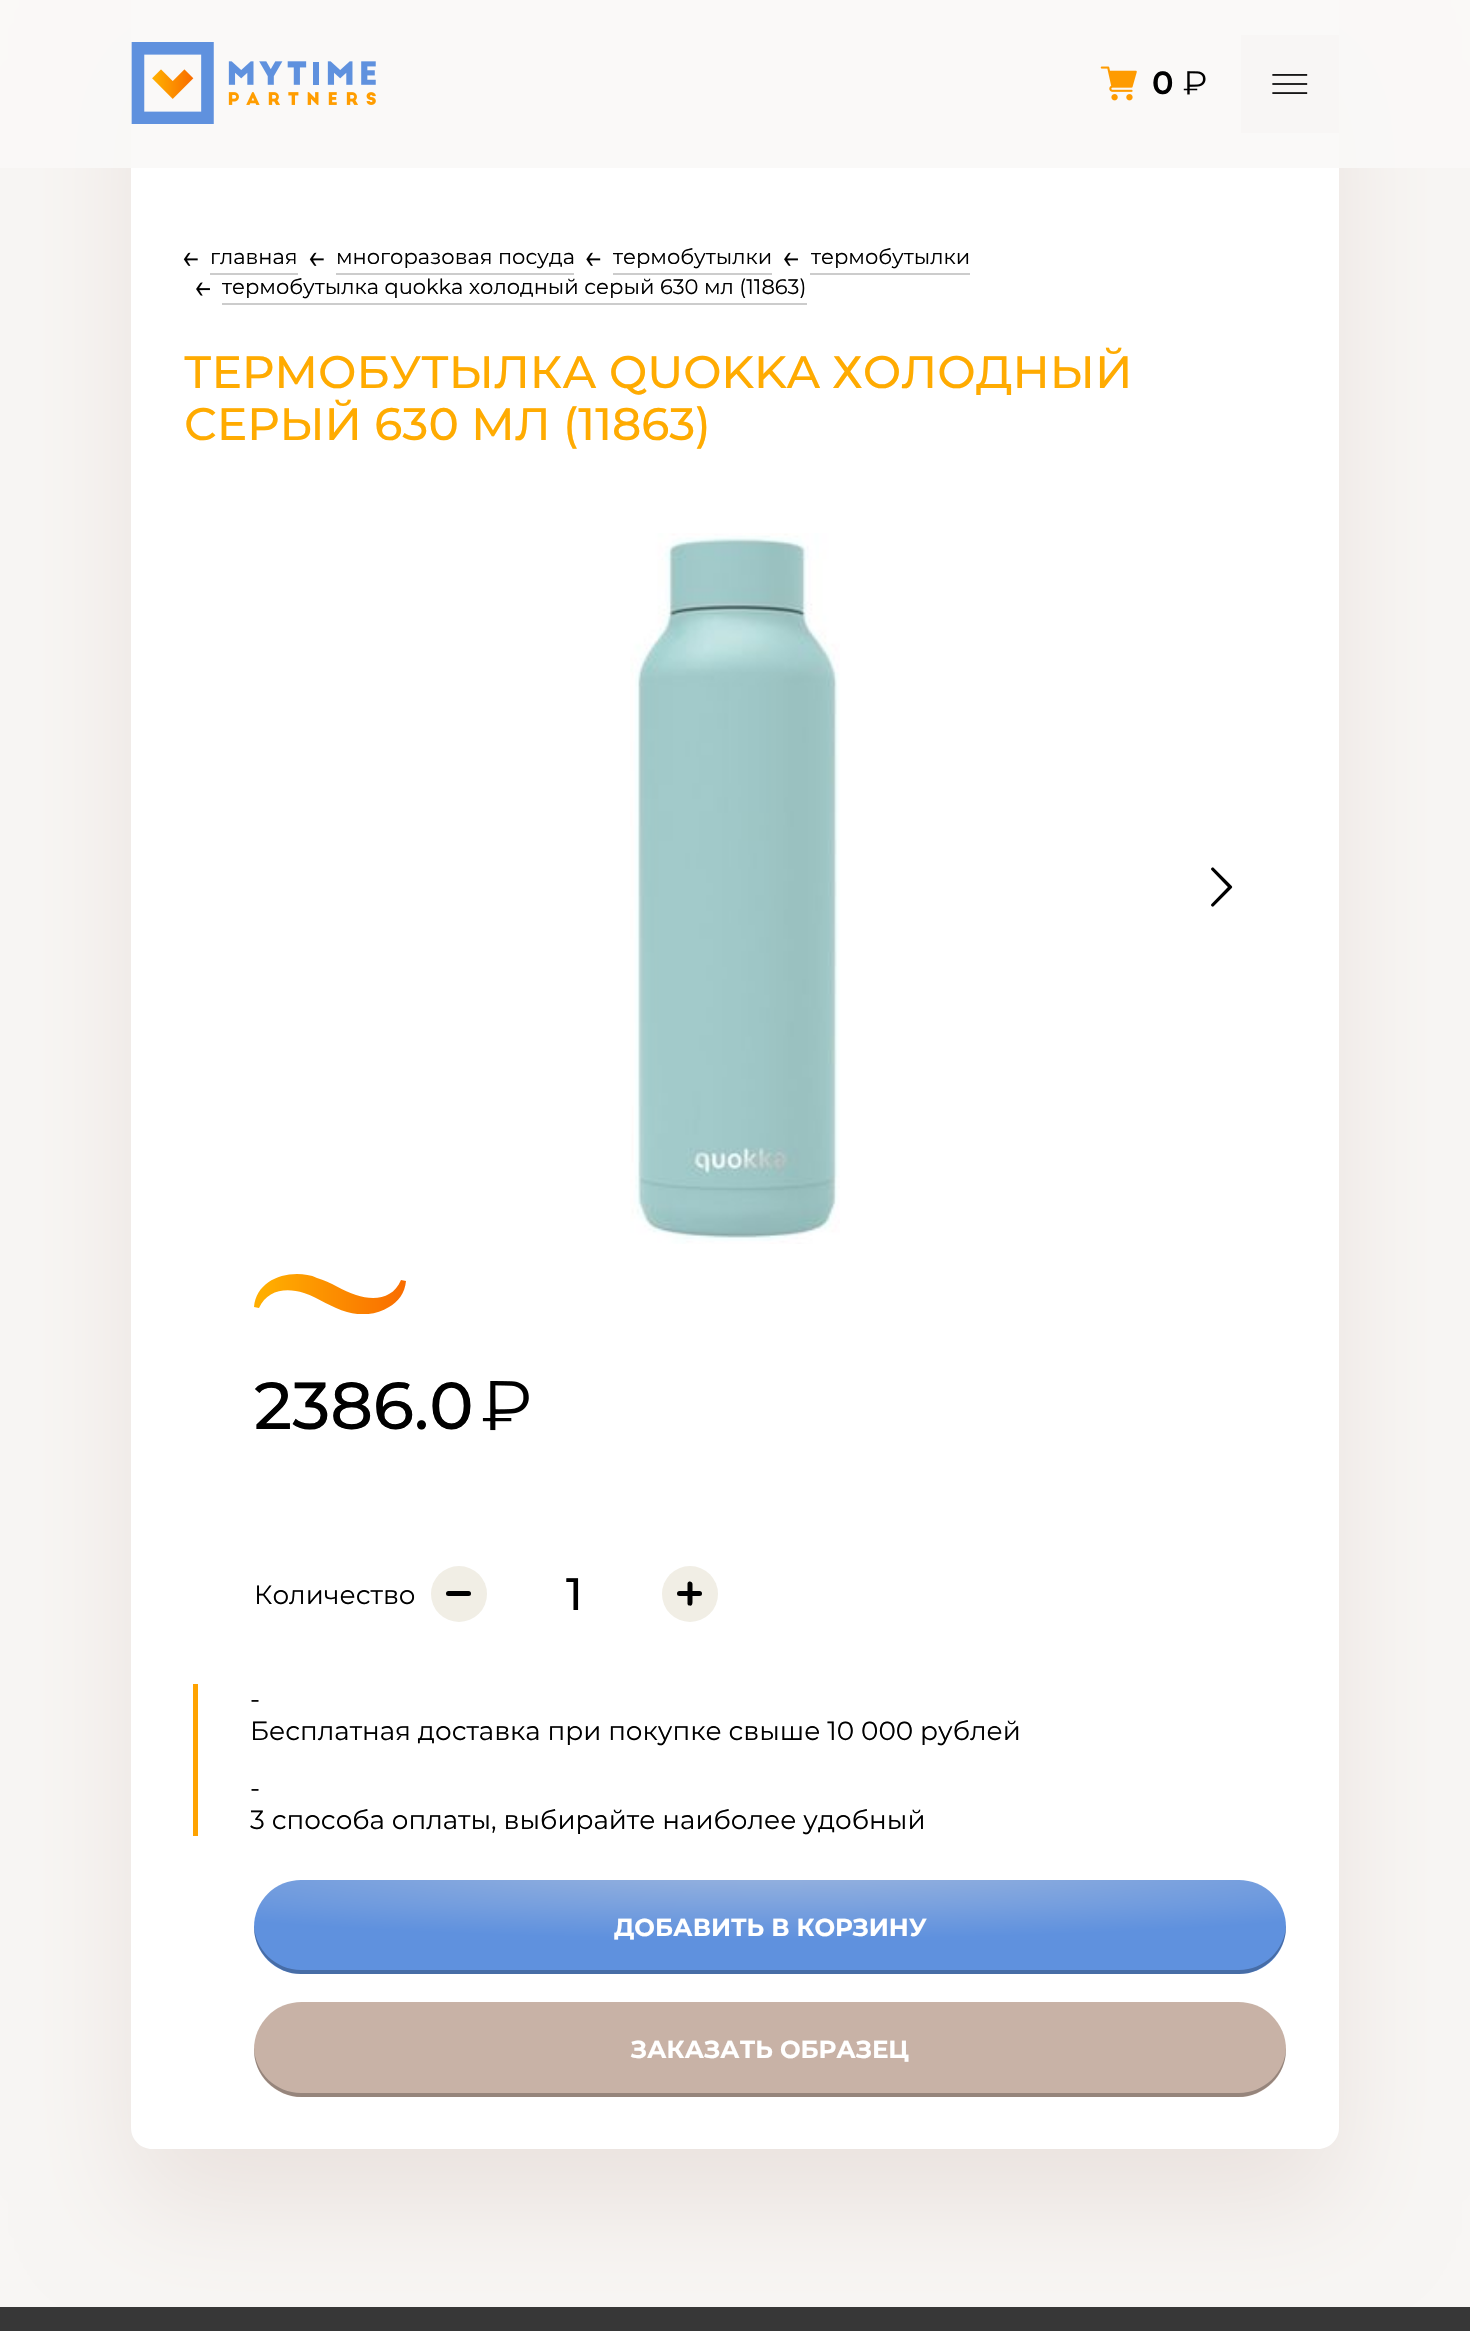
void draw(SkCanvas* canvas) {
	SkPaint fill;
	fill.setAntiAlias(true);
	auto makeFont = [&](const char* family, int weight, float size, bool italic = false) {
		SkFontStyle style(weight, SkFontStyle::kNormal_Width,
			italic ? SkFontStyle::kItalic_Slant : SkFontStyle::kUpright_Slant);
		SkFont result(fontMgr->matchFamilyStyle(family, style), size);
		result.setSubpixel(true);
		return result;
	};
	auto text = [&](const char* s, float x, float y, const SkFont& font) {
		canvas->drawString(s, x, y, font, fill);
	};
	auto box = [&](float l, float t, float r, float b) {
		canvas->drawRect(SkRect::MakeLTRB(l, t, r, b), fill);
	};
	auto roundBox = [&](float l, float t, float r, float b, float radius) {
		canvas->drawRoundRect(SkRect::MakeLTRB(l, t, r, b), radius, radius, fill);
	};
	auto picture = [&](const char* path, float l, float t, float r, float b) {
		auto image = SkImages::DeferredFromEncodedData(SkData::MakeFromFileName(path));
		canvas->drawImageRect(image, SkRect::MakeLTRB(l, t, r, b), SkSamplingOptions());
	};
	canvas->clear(0xFFF8F6F4);
	fill.setColor(0xFFEAE2DE);
	fill.setMaskFilter(SkMaskFilter::MakeBlur(kNormal_SkBlurStyle, 56));
	canvas->drawRoundRect(SkRect::MakeLTRB(131, 56, 1339, 2205), 21, 21, fill);
	fill.setMaskFilter(nullptr);
	fill.setColor(0xFFFFFFFF);
	canvas->drawPath(SkPathBuilder().moveTo(131, 0).lineTo(1339, 0).lineTo(1339, 2128).cubicTo(1339, 2139.5f, 1329.5f, 2149, 1318, 2149).lineTo(152, 2149).cubicTo(140.5f, 2149, 131, 2139.5f, 131, 2128).close().detach(), fill);
	fill.setColor(0xE6FAF8F7);
	box(0, 0, 1470, 168);
	picture("image0.png", 131, 42, 376, 124);
	picture("image1.png", 1100, 66, 1137, 101);
	picture("image2.png", 1183, 71, 1206, 95);
	fill.setColor(0xFFF8F6F5);
	box(1241, 35, 1339, 133);
	picture("image3.png", 1272, 74, 1308, 94);
	picture("image4.png", 183, 252, 198, 266);
	fill.setColor(0xFFCCCCCC);
	box(210, 273, 298, 275);
	picture("image4.png", 309, 252, 324, 266);
	box(336, 273, 574, 275);
	picture("image5.png", 586, 252, 601, 266);
	box(613, 273, 772, 275);
	picture("image6.png", 784, 252, 798, 266);
	box(810, 273, 970, 275);
	picture("image7.png", 196, 282, 210, 296);
	box(222, 303, 807, 305);
	picture("image8.png", 630, 533, 840, 1244);
	picture("image9.png", 1211, 867, 1233, 907);
	canvas->save();
	canvas->clipRect(SkRect::MakeLTRB(254, 1274, 406, 1314));
	{
		const SkColor colors[] = {0xFFFFAE00, 0xFFF96C00};
		const float stops[] = {0.06f, 1};
		const SkPoint ends[] = {{254, 1294}, {406, 1294}};
		fill.setShader(SkGradientShader::MakeLinear(ends, colors, stops, 2, SkTileMode::kClamp));
		fill.setAlpha(255);
	}
	canvas->drawPath(SkPathBuilder().moveTo(297, 1274).cubicTo(304, 1274, 311, 1275, 317, 1278).cubicTo(331, 1282, 343, 1291, 356, 1295).cubicTo(374, 1301, 393, 1299, 401, 1280).lineTo(406, 1281).cubicTo(405, 1293, 398, 1302, 389, 1307).cubicTo(376, 1315, 361, 1316, 347, 1312).cubicTo(332, 1308, 319, 1298, 304, 1293).cubicTo(286, 1287, 267, 1290, 259, 1308).lineTo(254, 1307).cubicTo(256, 1285, 276, 1274, 297, 1274).close().detach(), fill);
	canvas->restore();
	picture("image10.png", 482, 1381, 529, 1431);
	fill.setShader(nullptr);
	fill.setColor(0xFFF1EEE5);
	canvas->drawCircle(459, 1594, 28, fill);
	fill.setColor(0xFF000000);
	roundBox(446, 1591, 471, 1596, 2.5f);
	fill.setColor(0xFFF1EEE5);
	canvas->drawCircle(690, 1594, 28, fill);
	fill.setColor(0xFF000000);
	roundBox(677, 1591, 702, 1596, 2.5f);
	canvas->drawPath(SkPathBuilder().moveTo(692.5f, 1584).lineTo(692.5f, 1600).cubicTo(692.5f, 1602, 693, 1606.5f, 689.5f, 1605.5f).cubicTo(688.5f, 1605.5f, 688, 1605, 687.5f, 1604).lineTo(687.5f, 1583.5f).cubicTo(688, 1580.5f, 692.5f, 1581, 692.5f, 1584).close().detach(), fill);
	fill.setColor(0xFFFFA301);
	box(193, 1684, 198, 1836);
	{
		const SkColor colors[] = {0xFF9DB6DE, 0xFF5F91DE};
		const float stops[] = {0, 1};
		SkMatrix m = SkMatrix::Translate(770, 1866).preScale(799, 73);
		fill.setShader(SkGradientShader::MakeRadial({0, 0}, 1, colors, stops, 2, SkTileMode::kClamp, 0, &m));
		fill.setAlpha(255);
	}
	roundBox(254, 1880, 1286, 1974, 47);
	fill.setShader(nullptr);
	fill.setColor(0x40000000);
	canvas->drawPath(SkPathBuilder().moveTo(254, 1925).cubicTo(253, 1951, 275, 1974, 301, 1974).lineTo(1239, 1974).cubicTo(1265, 1974, 1287, 1951, 1286, 1925).cubicTo(1285, 1950, 1264, 1970, 1239, 1970).lineTo(301, 1970).cubicTo(276, 1970, 255, 1950, 254, 1925).close().detach(), fill);
	fill.setColor(0xFFC8B2A6);
	roundBox(254, 2002, 1286, 2097, 47.5f);
	fill.setColor(0x40000000);
	canvas->drawPath(SkPathBuilder().moveTo(254, 2048).cubicTo(253, 2074, 275, 2097, 302, 2097).lineTo(1238, 2097).cubicTo(1265, 2097, 1287, 2074, 1286, 2048).cubicTo(1285, 2073, 1264, 2093, 1239, 2093).lineTo(301, 2093).cubicTo(276, 2093, 255, 2073, 254, 2048).close().detach(), fill);
	fill.setColor(0xFF373737);
	box(0, 2307, 1470, 2331);
	auto font1 = makeFont("Montserrat", 600, 32);
	fill.setColor(0xFF000000);
	text("0", 1152, 94, font1);
	auto font2 = makeFont("Montserrat", 400, 21);
	text("главная", 210, 264, font2);
	text("многоразовая посуда", 336, 264, font2);
	text("термобутылки", 613, 264, font2);
	text("термобутылки", 811, 264, font2);
	text("термобутылка quokka холодный серый 630 мл (11863)", 222, 294, font2);
	auto font3 = makeFont("Montserrat", 500, 45.5f);
	fill.setColor(0xFFFFAB01);
	text("ТЕРМОБУТЫЛКА QUOKKA ХОЛОДНЫЙ", 184, 388, font3);
	text("СЕРЫЙ 630 МЛ (11863)", 184, 440, font3);
	auto font4 = makeFont("Montserrat", 500, 66.5f);
	fill.setColor(0xFF000000);
	text("2386.0", 254, 1429, font4);
	auto font5 = makeFont("Montserrat", 400, 26.25f);
	text("Количество", 254, 1604, font5);
	text("1", 566, 1610, font3);
	text("-", 250, 1708, font5);
	text("Бесплатная доставка при покупке свыше 10 000 рублей", 250, 1740, font5);
	text("-", 250, 1797, font5);
	text("3 способа оплаты, выбирайте наиболее удобный", 250, 1829, font5);
	auto font6 = makeFont("Montserrat", 700, 24.5f);
	fill.setColor(0xFFFFFFFF);
	text("ДОБАВИТЬ В КОРЗИНУ", 614, 1936, font6);
	text("ЗАКАЗАТЬ ОБРАЗЕЦ", 631, 2058, font6);
}
